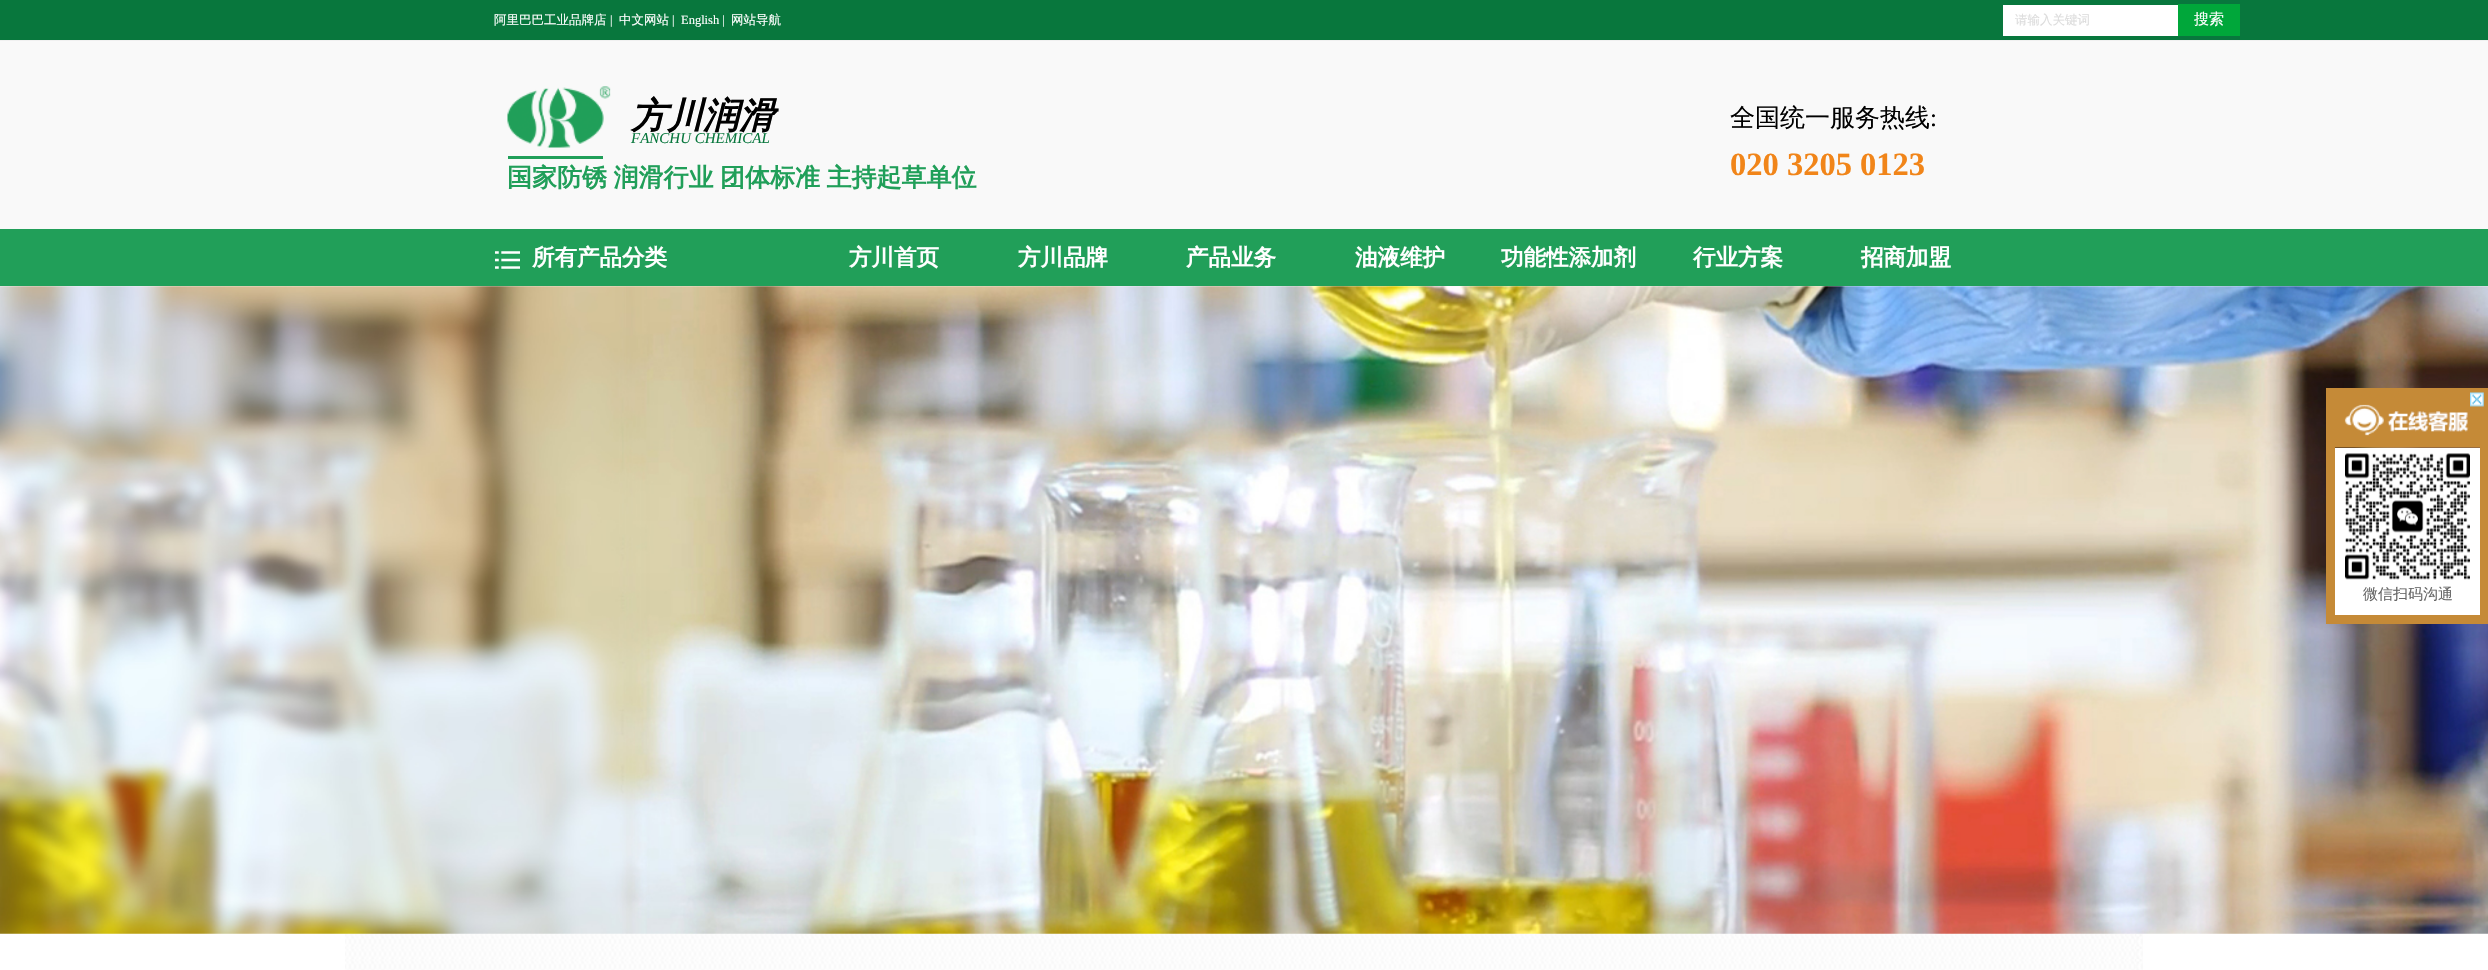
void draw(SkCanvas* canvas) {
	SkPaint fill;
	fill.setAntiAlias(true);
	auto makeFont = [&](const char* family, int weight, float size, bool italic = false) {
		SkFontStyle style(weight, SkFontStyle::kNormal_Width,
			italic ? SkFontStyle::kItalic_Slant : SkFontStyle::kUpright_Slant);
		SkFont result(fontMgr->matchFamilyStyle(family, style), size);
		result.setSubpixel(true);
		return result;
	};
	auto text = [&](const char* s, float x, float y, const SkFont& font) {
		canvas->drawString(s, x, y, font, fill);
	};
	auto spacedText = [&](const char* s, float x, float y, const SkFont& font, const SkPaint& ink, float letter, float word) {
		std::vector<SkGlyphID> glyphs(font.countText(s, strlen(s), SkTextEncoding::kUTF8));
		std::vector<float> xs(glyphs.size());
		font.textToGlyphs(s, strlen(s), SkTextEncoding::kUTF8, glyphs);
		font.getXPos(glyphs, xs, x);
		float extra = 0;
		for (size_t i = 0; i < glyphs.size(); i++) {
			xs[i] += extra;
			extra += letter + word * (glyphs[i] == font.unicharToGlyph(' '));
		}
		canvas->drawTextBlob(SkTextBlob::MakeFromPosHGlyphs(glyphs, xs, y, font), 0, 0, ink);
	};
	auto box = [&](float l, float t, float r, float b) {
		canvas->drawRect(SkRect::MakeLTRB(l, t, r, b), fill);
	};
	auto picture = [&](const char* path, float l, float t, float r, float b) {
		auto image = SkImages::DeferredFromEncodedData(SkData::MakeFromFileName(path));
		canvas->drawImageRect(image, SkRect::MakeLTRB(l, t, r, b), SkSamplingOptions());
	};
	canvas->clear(0xFFFFFFFF);
	picture("image0.png", 345, 286, 2143, 970);
	fill.setColor(0xFFF9F9F9);
	box(0, 41, 2488, 229);
	fill.setColor(0xFF08773D);
	box(0, 0, 2488, 40);
	fill.setColor(0xFFF0F0F0);
	box(0, 40, 2488, 41);
	fill.setColor(0xFFFFFFFF);
	box(2003, 5, 2178, 36);
	fill.setColor(0xFF00A73A);
	box(2178, 4, 2240, 36);
	picture("image1.png", 507, 86, 611, 148);
	fill.setColor(0xFF209F59);
	box(508, 156, 603, 159);
	fill.setColor(0xFF219F59);
	box(0, 229, 2488, 286);
	picture("image2.png", 495, 251, 520, 269);
	picture("image3.png", 0, 286, 2488, 934);
	fill.setStyle(SkPaint::kStroke_Style);
	fill.setStrokeWidth(9);
	fill.setColor(0xFFC58A37);
	canvas->drawRect(SkRect::MakeLTRB(2330.5f, 392.5f, 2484.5f, 619.5f), fill);
	picture("image4.png", 2335, 397, 2480, 448);
	picture("image5.png", 2470, 392, 2484, 407);
	fill.setStyle(SkPaint::kFill_Style);
	fill.setColor(0xFFFFFFFF);
	box(2335, 448, 2480, 615);
	picture("image6.png", 2345, 453, 2470, 580);
	auto font1 = makeFont("WenQuanYi Zen Hei", 500, 12.5f);
	text("阿里巴巴工业品牌店", 494, 24, font1);
	auto font2 = makeFont("Liberation Serif", 400, 12.5f);
	text("|", 610, 24, font2);
	text("中文网站", 619, 24, font1);
	text("|", 672, 24, font2);
	text("English |", 681, 24, font2);
	text("网站导航", 731, 24, font1);
	fill.setColor(0xFFDCDCDC);
	text("请输入关键词", 2015, 24, font1);
	auto font3 = makeFont("WenQuanYi Zen Hei", 500, 15);
	fill.setColor(0xFFFFFFFF);
	text("搜索", 2194, 24, font3);
	auto font4 = makeFont("WenQuanYi Zen Hei", 700, 36, true);
	fill.setColor(0xFF000000);
	text("方川润滑", 631, 128, font4);
	auto font5 = makeFont("Liberation Serif", 400, 15, true);
	fill.setColor(0xFF08773D);
	text("FANCHU CHEMICAL", 631, 143, font5);
	auto font6 = makeFont("WenQuanYi Zen Hei", 700, 25);
	fill.setColor(0xFF209F59);
	spacedText("国家防锈 润滑行业 团体标准 主持起草单位", 507, 186, font6, fill, 0, -1);
	auto font7 = makeFont("WenQuanYi Zen Hei", 500, 25);
	fill.setColor(0xFF000000);
	text("全国统一服务热线", 1730, 126, font7);
	auto font8 = makeFont("Liberation Serif", 400, 25);
	text(":", 1930, 126, font8);
	auto font9 = makeFont("Liberation Serif", 700, 32.5f);
	fill.setColor(0xFFF18519);
	text("020 3205 0123", 1730, 175, font9);
	auto font10 = makeFont("WenQuanYi Zen Hei", 700, 22.5f);
	fill.setColor(0xFFFFFFFF);
	text("所有产品分类", 532, 265, font10);
	text("方川首页", 849, 265, font10);
	text("方川品牌", 1018, 265, font10);
	text("产品业务", 1186, 265, font10);
	text("油液维护", 1355, 265, font10);
	text("功能性添加剂", 1501, 265, font10);
	text("行业方案", 1693, 265, font10);
	text("招商加盟", 1861, 265, font10);
	fill.setColor(0xFF666666);
	text("微信扫码沟通", 2363, 599, font3);
}
